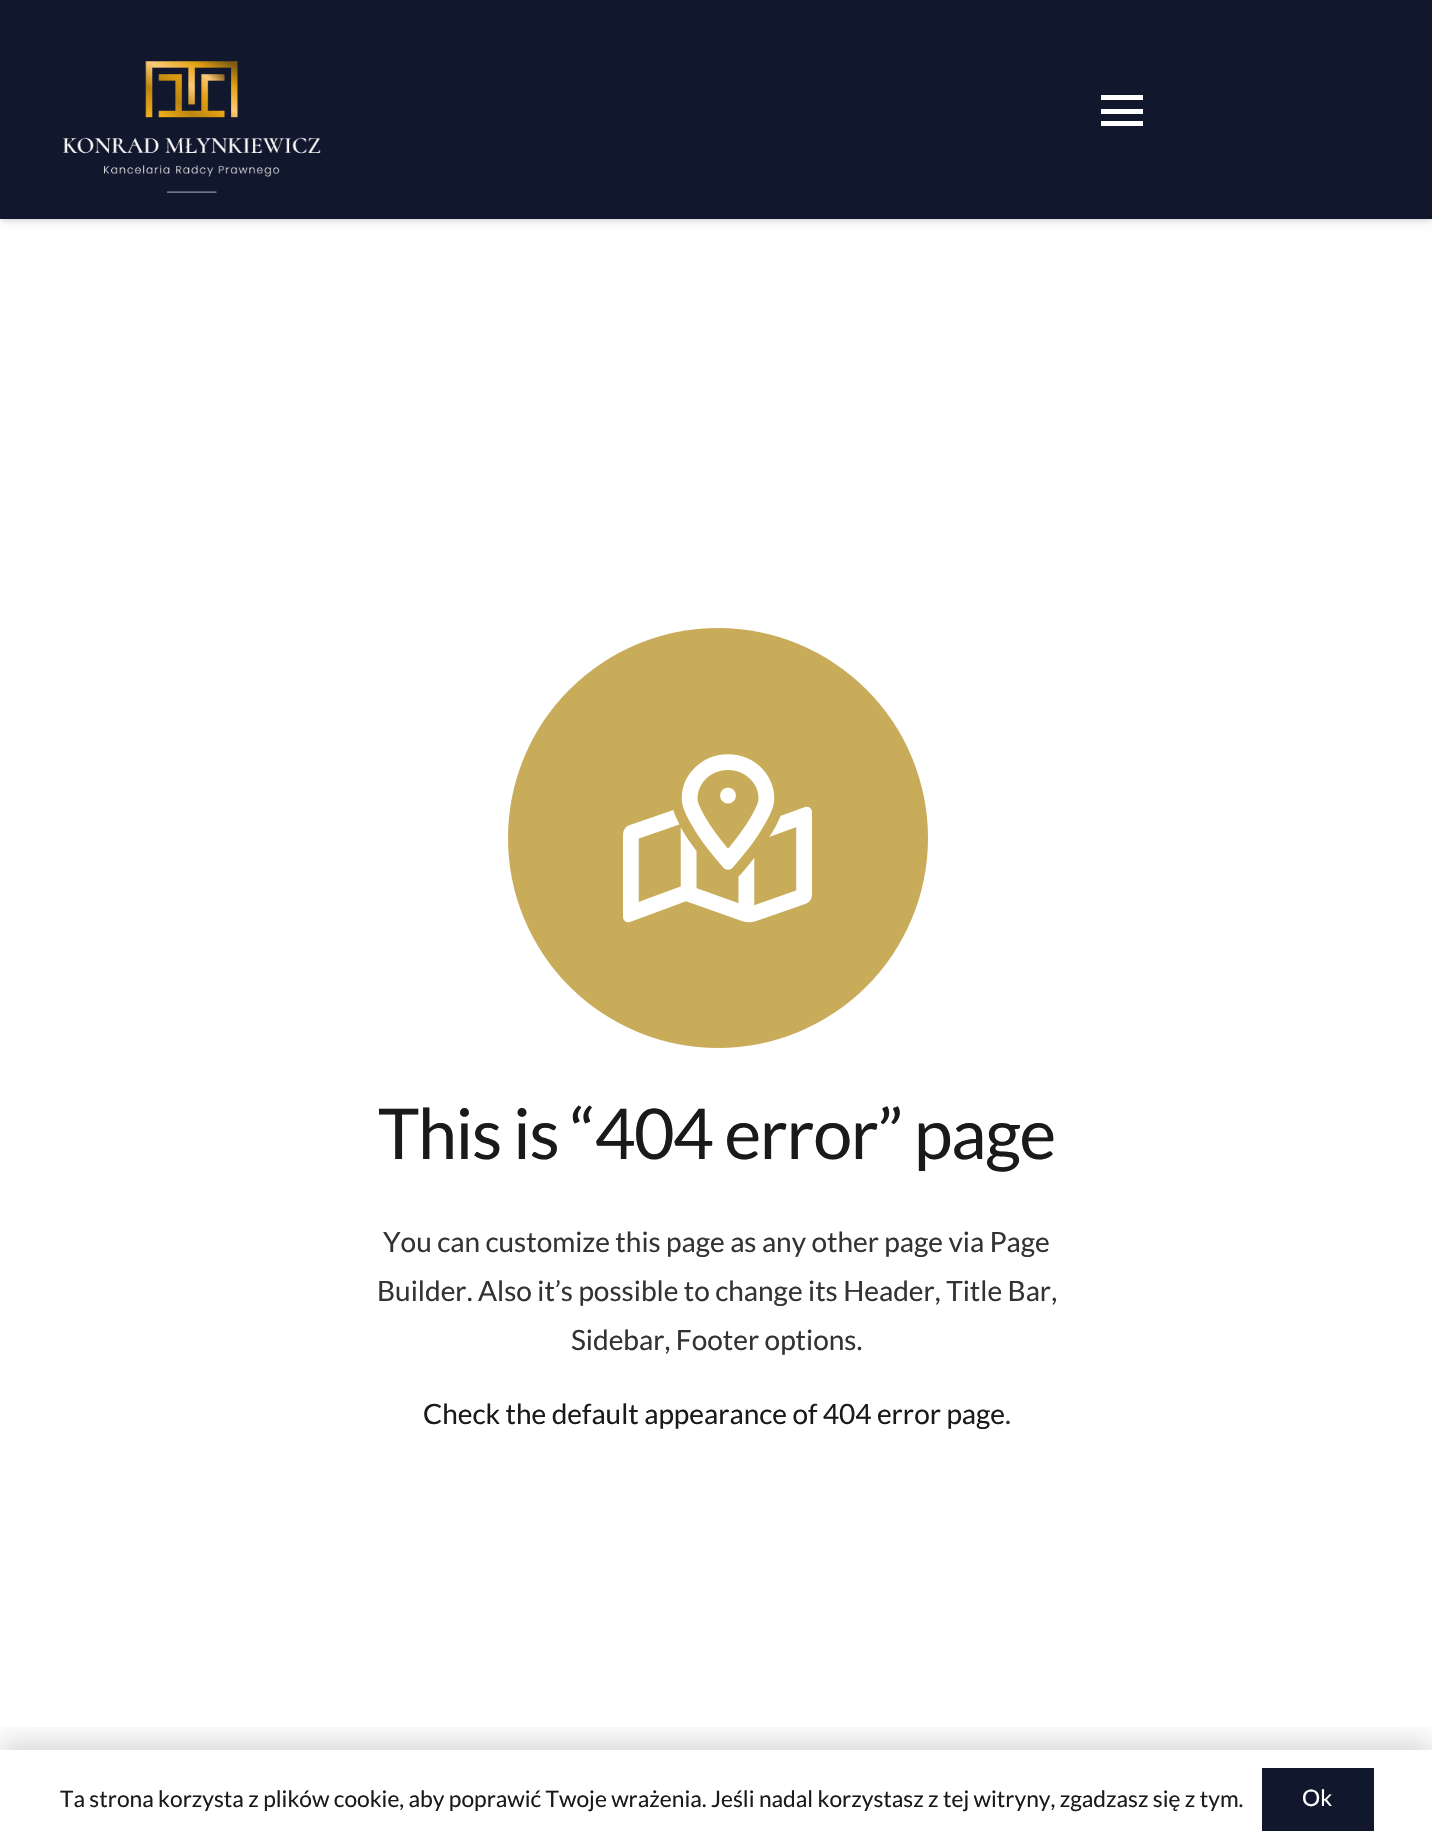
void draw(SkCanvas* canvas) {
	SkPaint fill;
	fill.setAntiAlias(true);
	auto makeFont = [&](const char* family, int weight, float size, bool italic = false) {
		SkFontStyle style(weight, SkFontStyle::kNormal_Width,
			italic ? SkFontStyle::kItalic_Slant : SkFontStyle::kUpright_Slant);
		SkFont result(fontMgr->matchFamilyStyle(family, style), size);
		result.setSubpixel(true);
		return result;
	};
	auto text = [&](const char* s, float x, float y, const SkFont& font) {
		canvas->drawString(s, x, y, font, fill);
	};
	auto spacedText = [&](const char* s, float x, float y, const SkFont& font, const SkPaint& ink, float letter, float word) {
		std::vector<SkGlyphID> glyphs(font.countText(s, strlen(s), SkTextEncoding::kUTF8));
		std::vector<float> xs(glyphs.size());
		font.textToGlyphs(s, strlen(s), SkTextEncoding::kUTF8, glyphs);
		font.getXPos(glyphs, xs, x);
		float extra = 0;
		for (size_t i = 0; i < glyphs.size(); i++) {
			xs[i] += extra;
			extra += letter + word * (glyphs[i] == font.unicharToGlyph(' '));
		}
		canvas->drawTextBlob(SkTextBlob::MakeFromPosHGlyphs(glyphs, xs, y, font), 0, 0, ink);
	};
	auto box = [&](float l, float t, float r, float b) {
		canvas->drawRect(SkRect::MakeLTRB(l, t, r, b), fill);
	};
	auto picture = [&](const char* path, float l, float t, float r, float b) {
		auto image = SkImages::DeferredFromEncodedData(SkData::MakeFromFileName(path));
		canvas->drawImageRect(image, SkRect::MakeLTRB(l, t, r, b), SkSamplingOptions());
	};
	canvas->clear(0xFFFFFFFF);
	fill.setColor(0x0D000000);
	fill.setMaskFilter(SkMaskFilter::MakeBlur(kNormal_SkBlurStyle, 1));
	canvas->drawRect(SkRect::MakeLTRB(2, 5, 1432, 221), fill);
	fill.setMaskFilter(nullptr);
	fill.setColor(0x1A000000);
	fill.setMaskFilter(SkMaskFilter::MakeBlur(kNormal_SkBlurStyle, 4.5f));
	canvas->drawRect(SkRect::MakeLTRB(2, 7, 1432, 222), fill);
	fill.setMaskFilter(nullptr);
	fill.setColor(0xFF11172D);
	box(0, 0, 1432, 219);
	picture("image0.png", 63, 61, 321, 193);
	fill.setColor(0xFFFFFFFF);
	box(1101, 109, 1143, 114);
	box(1101, 95, 1143, 100);
	box(1101, 121, 1143, 126);
	fill.setColor(0xFFC9AC5A);
	canvas->drawCircle(718, 838, 210, fill);
	picture("image1.png", 623, 754, 812, 923);
	canvas->save();
	canvas->clipRect(SkRect::MakeLTRB(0, 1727, 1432, 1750));
	fill.setColor(0x26000000);
	fill.setMaskFilter(SkMaskFilter::MakeBlur(kNormal_SkBlurStyle, 13));
	canvas->drawRect(SkRect::MakeLTRB(0, 1741, 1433, 1839), fill);
	fill.setMaskFilter(nullptr);
	canvas->restore();
	fill.setColor(0xFF11172D);
	box(1262, 1768, 1374, 1831);
	auto font1 = makeFont("Lato", 400, 70);
	fill.setColor(0xFF1A1A1A);
	spacedText("This is “404 error” page", 378, 1159, font1, fill, -1.4f, 0);
	auto font2 = makeFont("Lato", 400, 28);
	fill.setColor(0xFF333333);
	text("You can customize this page as any other page via Page", 383, 1252, font2);
	text("Builder. Also it’s possible to change its Header, Title Bar,", 377, 1301, font2);
	text("Sidebar, Footer options.", 571, 1350, font2);
	fill.setColor(0xFF1A1A1A);
	text("Check the default appearance of 404 error page", 423, 1424, font2);
	fill.setColor(0xFF333333);
	text(".", 1005, 1424, font2);
	auto font3 = makeFont("Lato", 400, 22.75f);
	fill.setColor(0xFF1A1A1A);
	text("Ta strona korzysta z plików cookie, aby poprawić Twoje wrażenia. Jeśli nadal korzystasz z tej witryny, zgadzasz się z tym.", 60, 1807, font3);
	fill.setColor(0xFFFFFFFF);
	text("Ok", 1302, 1806, font3);
}
